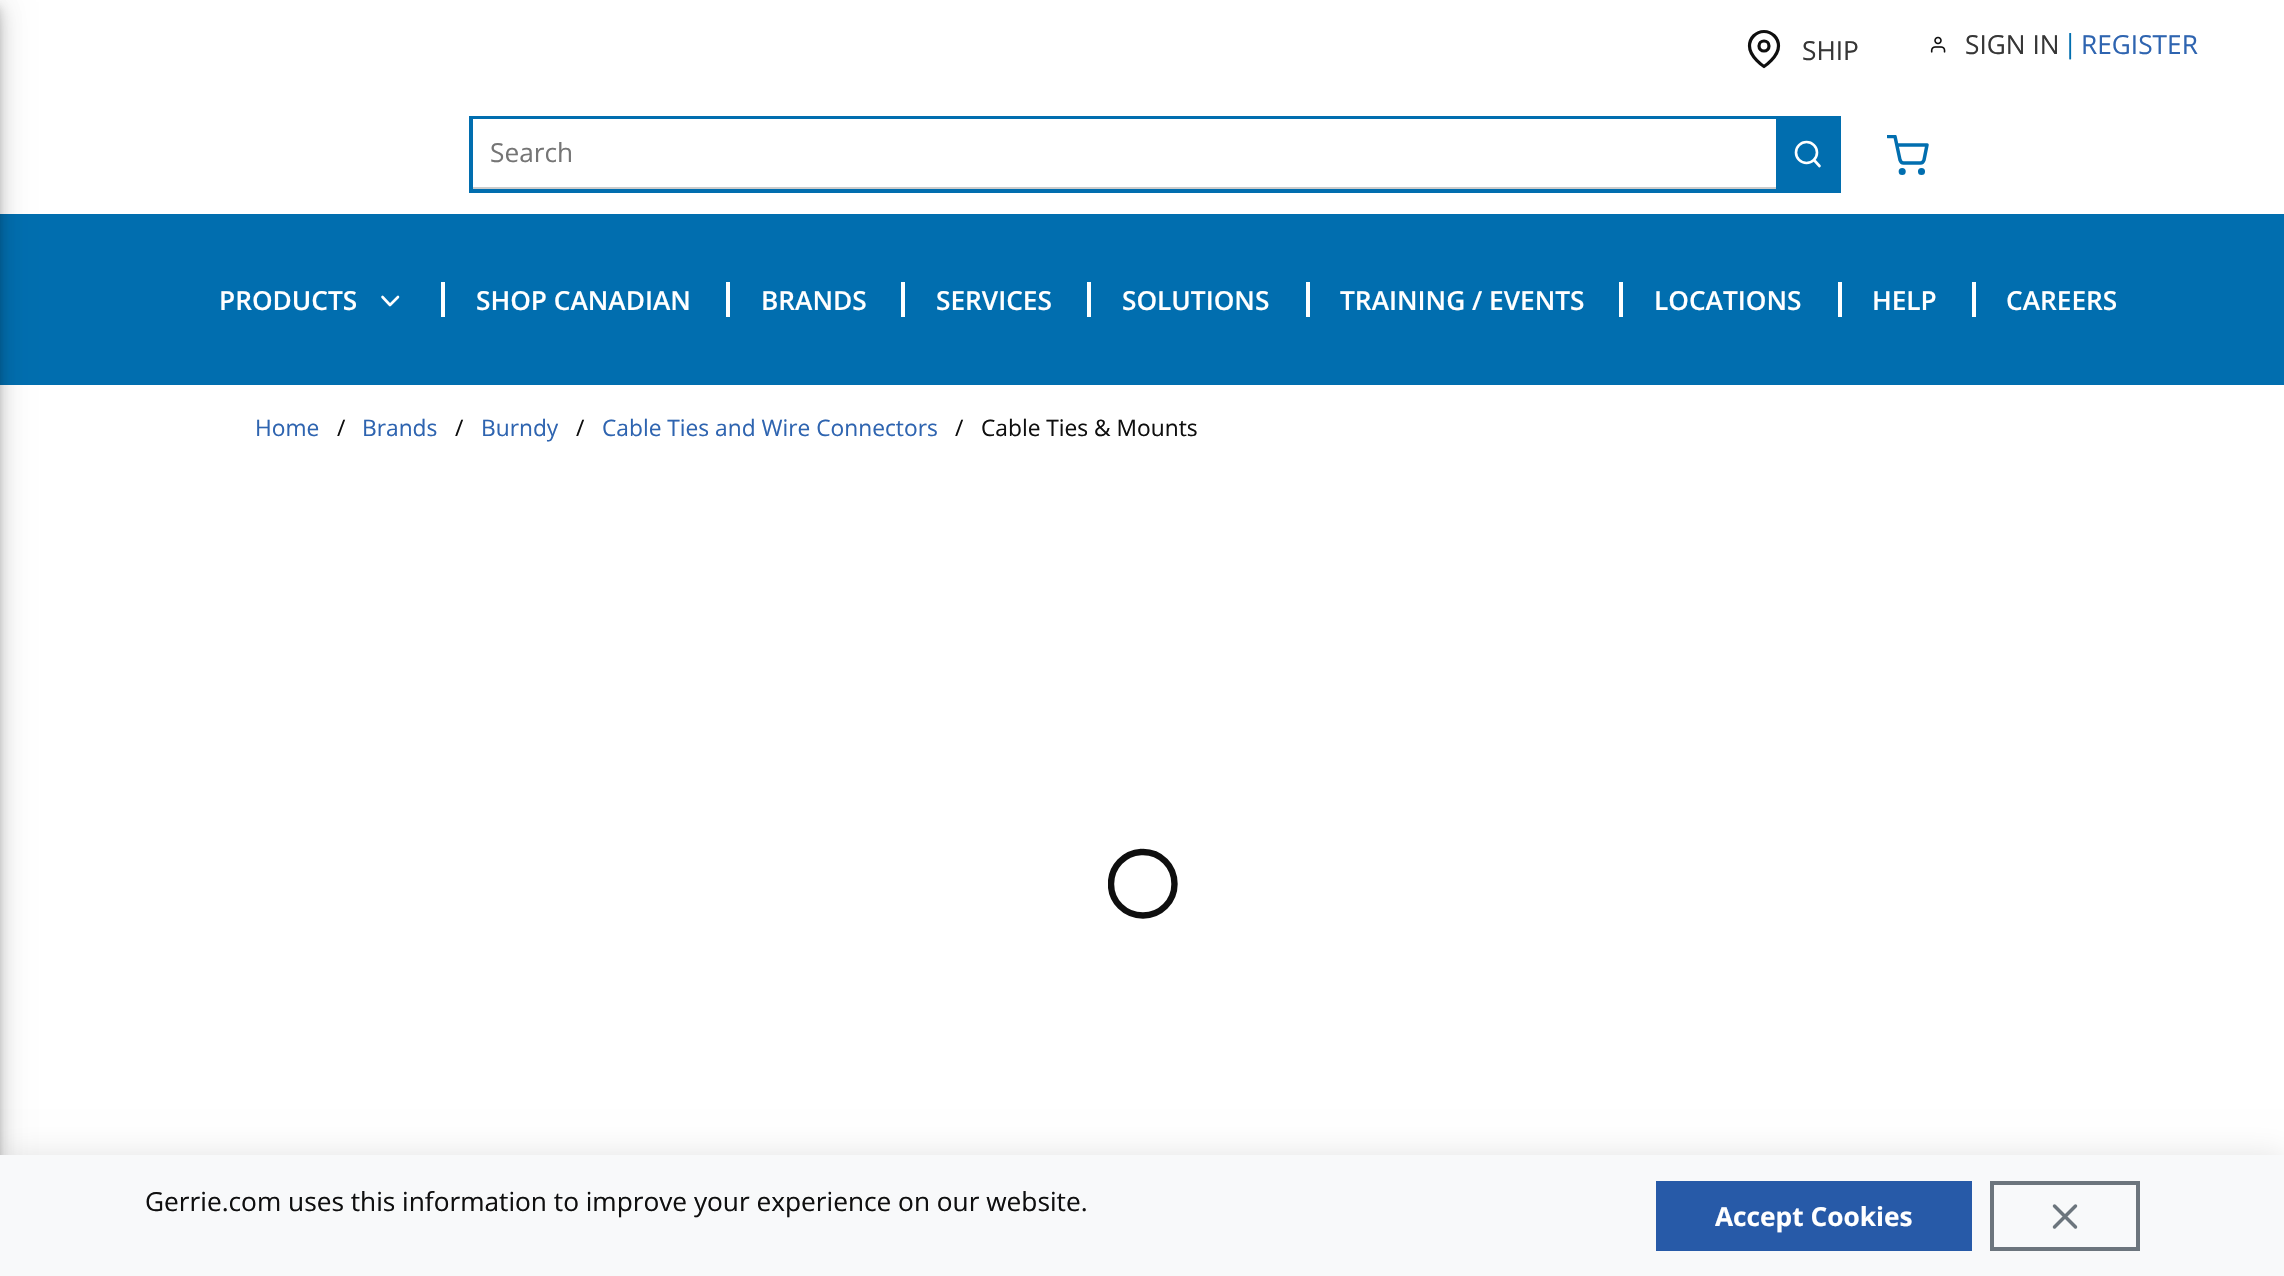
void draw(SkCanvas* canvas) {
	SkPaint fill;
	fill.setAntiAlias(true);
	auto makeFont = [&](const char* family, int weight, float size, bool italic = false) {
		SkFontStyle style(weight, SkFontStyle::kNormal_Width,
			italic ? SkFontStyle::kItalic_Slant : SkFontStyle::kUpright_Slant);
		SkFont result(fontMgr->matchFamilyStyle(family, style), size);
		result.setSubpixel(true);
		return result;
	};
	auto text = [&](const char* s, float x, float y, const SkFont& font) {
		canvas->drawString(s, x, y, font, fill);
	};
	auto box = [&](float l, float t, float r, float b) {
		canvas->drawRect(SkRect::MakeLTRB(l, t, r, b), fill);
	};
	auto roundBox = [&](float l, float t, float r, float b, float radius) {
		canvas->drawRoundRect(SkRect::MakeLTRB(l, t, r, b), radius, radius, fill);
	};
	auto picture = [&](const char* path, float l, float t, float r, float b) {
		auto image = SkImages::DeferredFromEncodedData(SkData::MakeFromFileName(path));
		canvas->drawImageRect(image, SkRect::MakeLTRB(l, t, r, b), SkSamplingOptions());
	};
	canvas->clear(0xFFFFFFFF);
	fill.setColor(0xFF016EAF);
	box(0, 214, 2284, 385);
	fill.setColor(0x1F000000);
	fill.setMaskFilter(SkMaskFilter::MakeBlur(kNormal_SkBlurStyle, 16));
	canvas->drawRect(SkRect::MakeLTRB(-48, 2, 0, 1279), fill);
	fill.setMaskFilter(nullptr);
	fill.setColor(0x24000000);
	fill.setMaskFilter(SkMaskFilter::MakeBlur(kNormal_SkBlurStyle, 9));
	canvas->drawRect(SkRect::MakeLTRB(-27, 11, 0, 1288), fill);
	fill.setMaskFilter(nullptr);
	fill.setColor(0x33000000);
	fill.setMaskFilter(SkMaskFilter::MakeBlur(kNormal_SkBlurStyle, 4.5f));
	canvas->drawRect(SkRect::MakeLTRB(-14, 7, -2, 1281), fill);
	fill.setMaskFilter(nullptr);
	fill.setStyle(SkPaint::kStroke_Style);
	fill.setStrokeWidth(3.2f);
	fill.setStrokeCap(SkPaint::kRound_Cap);
	fill.setStrokeJoin(SkPaint::kRound_Join);
	fill.setColor(0xFF0F0F0F);
	canvas->drawPath(SkPathBuilder().moveTo(1778.5f, 46).cubicTo(1778.5f, 57, 1764, 66.5f, 1764, 66.5f).cubicTo(1764, 66.5f, 1749.5f, 57, 1749.5f, 46).cubicTo(1749.5f, 38, 1756, 31.5f, 1764, 31.5f).cubicTo(1772, 31.5f, 1778.5f, 38, 1778.5f, 46).close().detach(), fill);
	fill.setStrokeCap(SkPaint::kButt_Cap);
	fill.setStrokeJoin(SkPaint::kMiter_Join);
	canvas->drawCircle(1764, 46, 5, fill);
	picture("image0.png", 1930, 36, 1946, 53);
	fill.setStrokeWidth(4);
	fill.setColor(0xFF016EAF);
	canvas->drawRect(SkRect::MakeLTRB(471, 118, 1839, 191), fill);
	fill.setStyle(SkPaint::kFill_Style);
	fill.setColor(0xFFFFFFFF);
	box(473, 119, 1776, 120);
	fill.setColor(0xFFCCCCCC);
	box(473, 187, 1776, 189);
	fill.setColor(0xFF016EAF);
	roundBox(1776, 117, 1839, 193, 1);
	fill.setStyle(SkPaint::kStroke_Style);
	fill.setStrokeWidth(2.6f);
	fill.setColor(0xFFFFFFFF);
	canvas->drawCircle(1806.5f, 152.5f, 10.5f, fill);
	fill.setStrokeCap(SkPaint::kRound_Cap);
	fill.setStrokeJoin(SkPaint::kRound_Join);
	canvas->drawPath(SkPathBuilder().moveTo(1819.5f, 166).lineTo(1814, 160).detach(), fill);
	fill.setStrokeWidth(3.5f);
	fill.setStrokeCap(SkPaint::kButt_Cap);
	fill.setStrokeJoin(SkPaint::kMiter_Join);
	fill.setColor(0xFF016EAF);
	canvas->drawCircle(1902.2f, 171.5f, 1.8f, fill);
	canvas->drawCircle(1921.5f, 171.5f, 1.8f, fill);
	canvas->save();
	canvas->clipRect(SkRect::MakeLTRB(1887, 135, 1929, 177));
	fill.setStrokeCap(SkPaint::kRound_Cap);
	fill.setStrokeJoin(SkPaint::kRound_Join);
	canvas->drawPath(SkPathBuilder().moveTo(1888, 136.5f).lineTo(1895, 136.5f).lineTo(1900, 160).cubicTo(1900.5f, 161.5f, 1901.5f, 163, 1903.5f, 163).lineTo(1920.5f, 163).cubicTo(1922, 163, 1923.5f, 161.5f, 1924, 160).lineTo(1927, 145).lineTo(1897, 145).detach(), fill);
	canvas->restore();
	fill.setStrokeWidth(2.6f);
	fill.setColor(0xFFFFFFFF);
	canvas->drawPath(SkPathBuilder().moveTo(382.5f, 297).lineTo(390, 305).lineTo(398, 297).detach(), fill);
	fill.setStyle(SkPaint::kFill_Style);
	box(441, 282, 445, 317);
	box(726, 282, 730, 317);
	box(901, 282, 905, 317);
	box(1087, 282, 1091, 317);
	box(1306, 282, 1310, 317);
	box(1619, 282, 1623, 317);
	box(1838, 282, 1842, 317);
	box(1972, 282, 1976, 317);
	canvas->save();
	canvas->clipRect(SkRect::MakeLTRB(1108, 508, 1178, 1260));
	fill.setStyle(SkPaint::kStroke_Style);
	fill.setStrokeWidth(6.4f);
	fill.setStrokeJoin(SkPaint::kMiter_Join);
	fill.setColor(0xFF0F0F0F);
	canvas->drawPath(SkPathBuilder().moveTo(1143, 852).cubicTo(1160.5f, 852, 1174.5f, 866, 1174.5f, 884).cubicTo(1174.5f, 901.5f, 1160.5f, 915.5f, 1143, 915.5f).cubicTo(1125, 915.5f, 1111, 901.5f, 1111, 884).cubicTo(1111, 866.5f, 1124.5f, 853, 1141, 852).detach(), fill);
	canvas->restore();
	fill.setStyle(SkPaint::kFill_Style);
	fill.setColor(0x1F000000);
	fill.setMaskFilter(SkMaskFilter::MakeBlur(kNormal_SkBlurStyle, 16));
	canvas->drawRect(SkRect::MakeLTRB(0, 1157, 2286, 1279), fill);
	fill.setMaskFilter(nullptr);
	fill.setColor(0xFFF8F9FA);
	box(0, 1155, 2284, 1276);
	fill.setColor(0xFF275AA8);
	box(1656, 1181, 1972, 1251);
	fill.setStyle(SkPaint::kStroke_Style);
	fill.setStrokeWidth(4);
	fill.setStrokeCap(SkPaint::kButt_Cap);
	fill.setColor(0xFF6C757D);
	canvas->drawRect(SkRect::MakeLTRB(1992, 1183, 2138, 1249), fill);
	fill.setStrokeWidth(3.5f);
	fill.setStrokeCap(SkPaint::kRound_Cap);
	fill.setStrokeJoin(SkPaint::kRound_Join);
	canvas->drawPath(SkPathBuilder().moveTo(2075.5f, 1206).lineTo(2054.5f, 1227).moveTo(2054.5f, 1206).lineTo(2075.5f, 1227).detach(), fill);
	auto font1 = makeFont("Open Sans", 400, 26.25f);
	fill.setStyle(SkPaint::kFill_Style);
	fill.setColor(0xFF363636);
	text("SHIP", 1802, 60, font1);
	text("SIGN IN", 1965, 54, font1);
	fill.setColor(0xFF016EAF);
	text("|", 2063, 53, font1);
	fill.setColor(0xFF2E64B0);
	text("REGISTER", 2081, 54, font1);
	fill.setColor(0xFF757575);
	text("Search", 490, 162, font1);
	auto font2 = makeFont("Open Sans", 600, 26.25f);
	fill.setColor(0xFFFFFFFF);
	text("PRODUCTS", 219, 310, font2);
	text("SHOP CANADIAN", 476, 310, font2);
	text("BRANDS", 761, 310, font2);
	text("SERVICES", 936, 310, font2);
	text("SOLUTIONS", 1122, 310, font2);
	text("TRAINING / EVENTS", 1340, 310, font2);
	text("LOCATIONS", 1654, 310, font2);
	text("HELP", 1872, 310, font2);
	text("CAREERS", 2006, 310, font2);
	auto font3 = makeFont("Open Sans", 400, 22.75f);
	fill.setColor(0xFF2E64B0);
	text("Home", 255, 436, font3);
	fill.setColor(0xFF0F0F0F);
	text("/", 337, 436, font3);
	fill.setColor(0xFF2E64B0);
	text("Brands", 362, 436, font3);
	fill.setColor(0xFF0F0F0F);
	text("/", 455, 436, font3);
	fill.setColor(0xFF2E64B0);
	text("Burndy", 481, 436, font3);
	fill.setColor(0xFF0F0F0F);
	text("/", 576, 436, font3);
	fill.setColor(0xFF2E64B0);
	text("Cable Ties and Wire Connectors", 602, 436, font3);
	fill.setColor(0xFF0F0F0F);
	text("/", 955, 436, font3);
	text("Cable Ties & Mounts", 981, 436, font3);
	text("Gerrie.com uses this information to improve your experience on our website.", 145, 1211, font1);
	auto font4 = makeFont("Open Sans", 700, 26.25f);
	fill.setColor(0xFFFFFFFF);
	text("Accept Cookies", 1715, 1226, font4);
}
